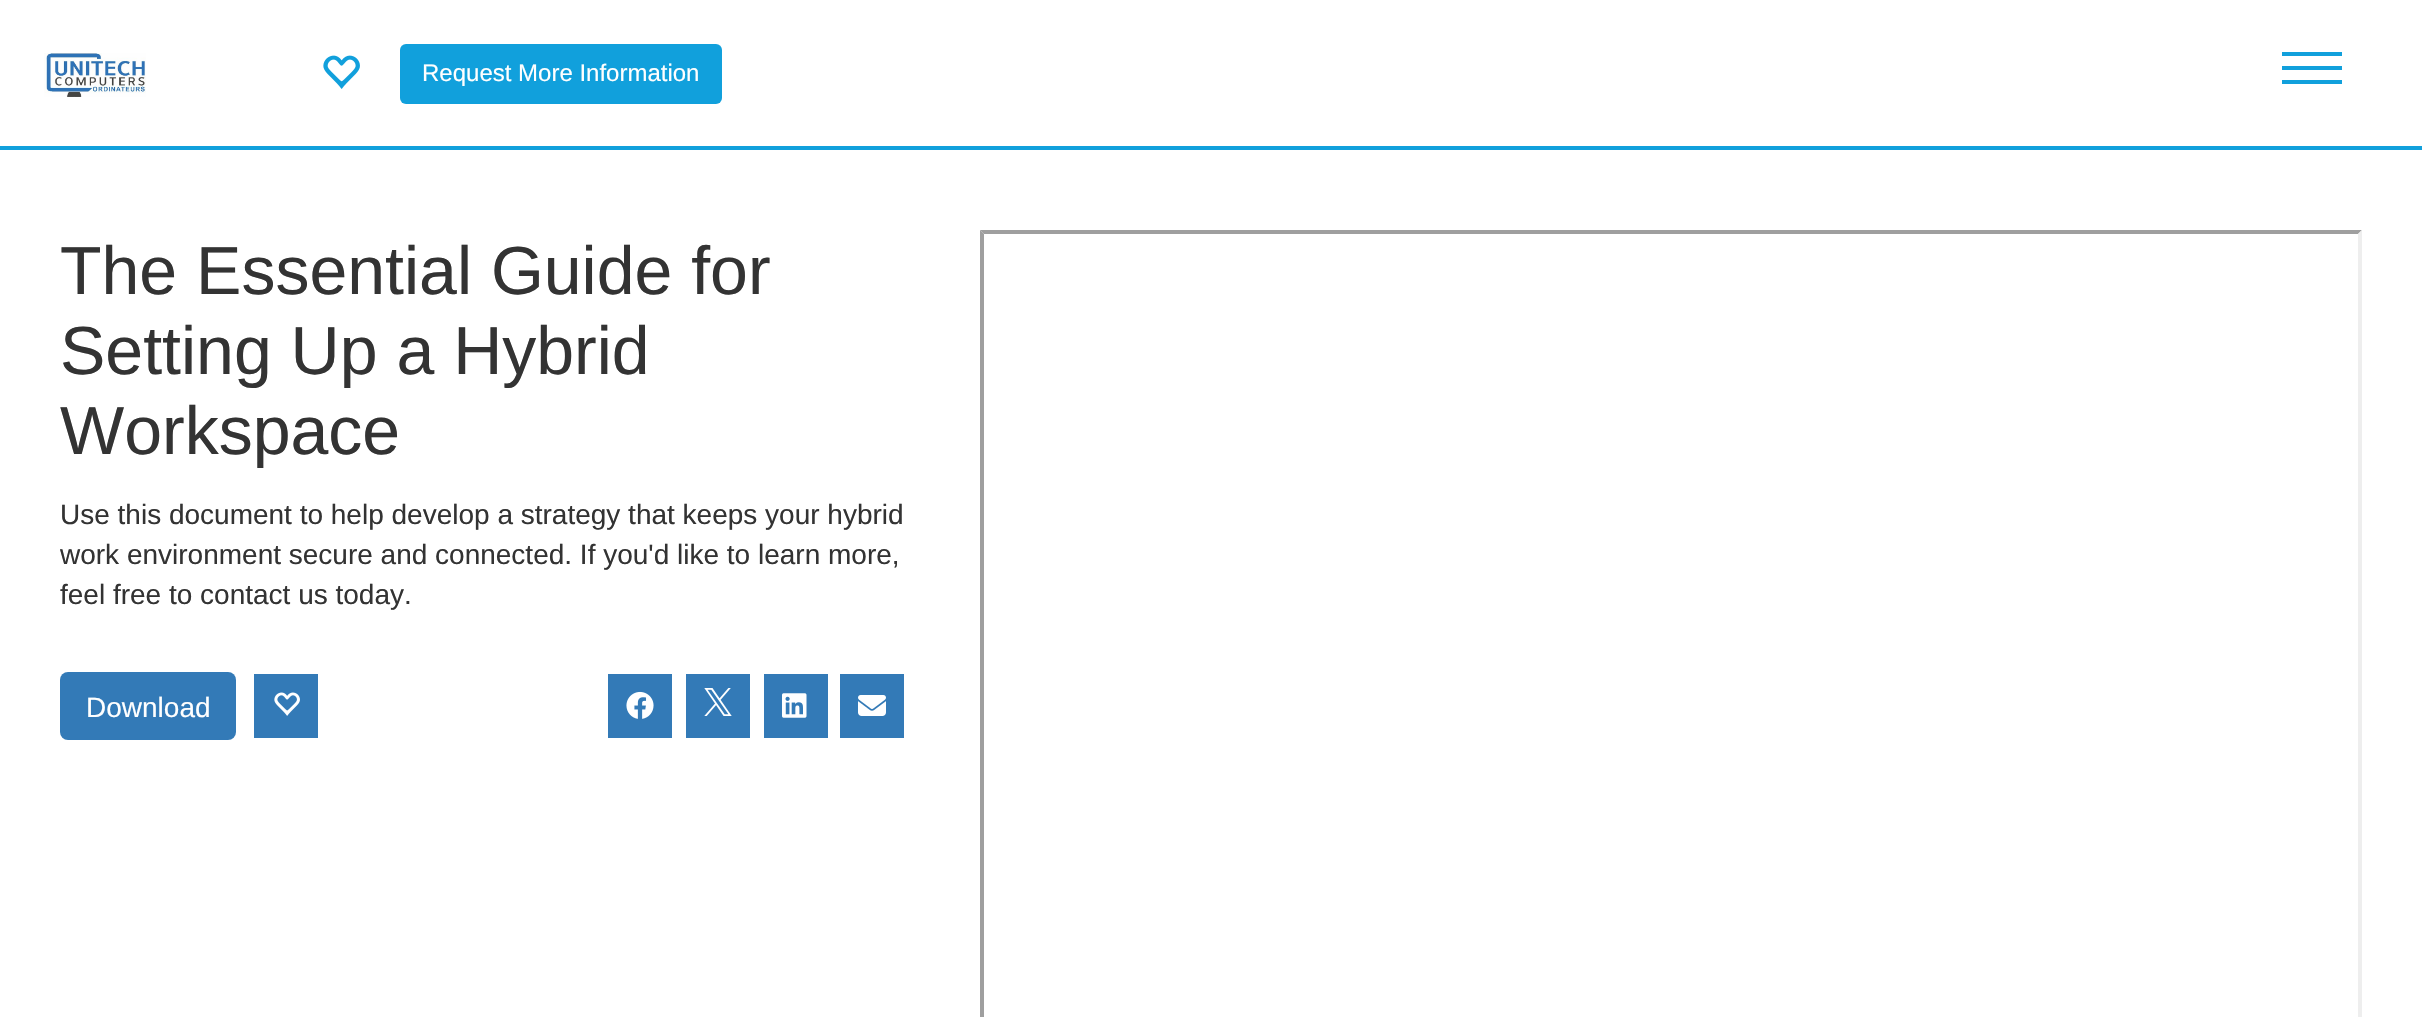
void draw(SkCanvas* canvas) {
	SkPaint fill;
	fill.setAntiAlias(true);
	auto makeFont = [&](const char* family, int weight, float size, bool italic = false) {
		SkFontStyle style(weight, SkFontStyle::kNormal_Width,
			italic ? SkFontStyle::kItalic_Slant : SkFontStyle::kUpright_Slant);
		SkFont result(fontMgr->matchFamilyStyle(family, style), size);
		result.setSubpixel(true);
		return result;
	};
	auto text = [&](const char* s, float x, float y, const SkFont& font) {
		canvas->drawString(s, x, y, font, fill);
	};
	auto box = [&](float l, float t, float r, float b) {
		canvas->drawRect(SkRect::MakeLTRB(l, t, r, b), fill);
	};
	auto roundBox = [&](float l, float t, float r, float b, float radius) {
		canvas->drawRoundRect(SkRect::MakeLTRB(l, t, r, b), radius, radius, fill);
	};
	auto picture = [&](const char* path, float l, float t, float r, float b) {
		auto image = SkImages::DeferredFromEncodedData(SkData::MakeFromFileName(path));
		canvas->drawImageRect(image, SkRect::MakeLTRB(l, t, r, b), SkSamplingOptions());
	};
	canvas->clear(0xFFFFFFFF);
	fill.setColor(0xFF11A0DC);
	box(0, 146, 2422, 150);
	picture("image0.png", 44, 53, 146, 97);
	picture("image1.png", 323, 55, 360, 89);
	roundBox(400, 44, 722, 104, 6);
	box(2282, 66, 2342, 70);
	box(2282, 52, 2342, 56);
	box(2282, 80, 2342, 84);
	fill.setColor(0xFF337AB7);
	roundBox(60, 672, 236, 740, 8);
	box(254, 674, 318, 738);
	picture("image2.png", 274, 692, 300, 716);
	box(608, 674, 672, 738);
	picture("image3.png", 626, 691, 654, 719);
	box(686, 674, 750, 738);
	picture("image4.png", 704, 688, 732, 716);
	box(764, 674, 828, 738);
	picture("image5.png", 782, 693, 807, 718);
	box(840, 674, 904, 738);
	picture("image6.png", 858, 695, 886, 716);
	fill.setColor(0xFF9F9F9F);
	canvas->drawPath(SkPathBuilder().moveTo(980, 230).lineTo(2362, 230).lineTo(2358, 234).lineTo(984, 234).close().detach(), fill);
	canvas->drawPath(SkPathBuilder().moveTo(980, 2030).lineTo(980, 230).lineTo(984, 234).lineTo(984, 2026).close().detach(), fill);
	fill.setColor(0xFFEEEEEE);
	canvas->drawPath(SkPathBuilder().moveTo(2362, 230).lineTo(2362, 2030).lineTo(2358, 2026).lineTo(2358, 234).close().detach(), fill);
	auto font1 = makeFont("Liberation Sans", 400, 24);
	fill.setColor(0xFFFFFFFF);
	text("Request More Information", 422, 81, font1);
	auto font2 = makeFont("Liberation Sans", 400, 68);
	fill.setColor(0xFF333333);
	text("The Essential Guide for", 60, 294, font2);
	text("Setting Up a Hybrid", 60, 374, font2);
	text("Workspace", 60, 454, font2);
	auto font3 = makeFont("Liberation Sans", 400, 28);
	text("Use this document to help develop a strategy that keeps your hybrid", 60, 524, font3);
	text("work environment secure and connected. If you'd like to learn more,", 60, 564, font3);
	text("feel free to contact us today.", 60, 604, font3);
	fill.setColor(0xFFFFFFFF);
	text("Download", 86, 717, font3);
}
